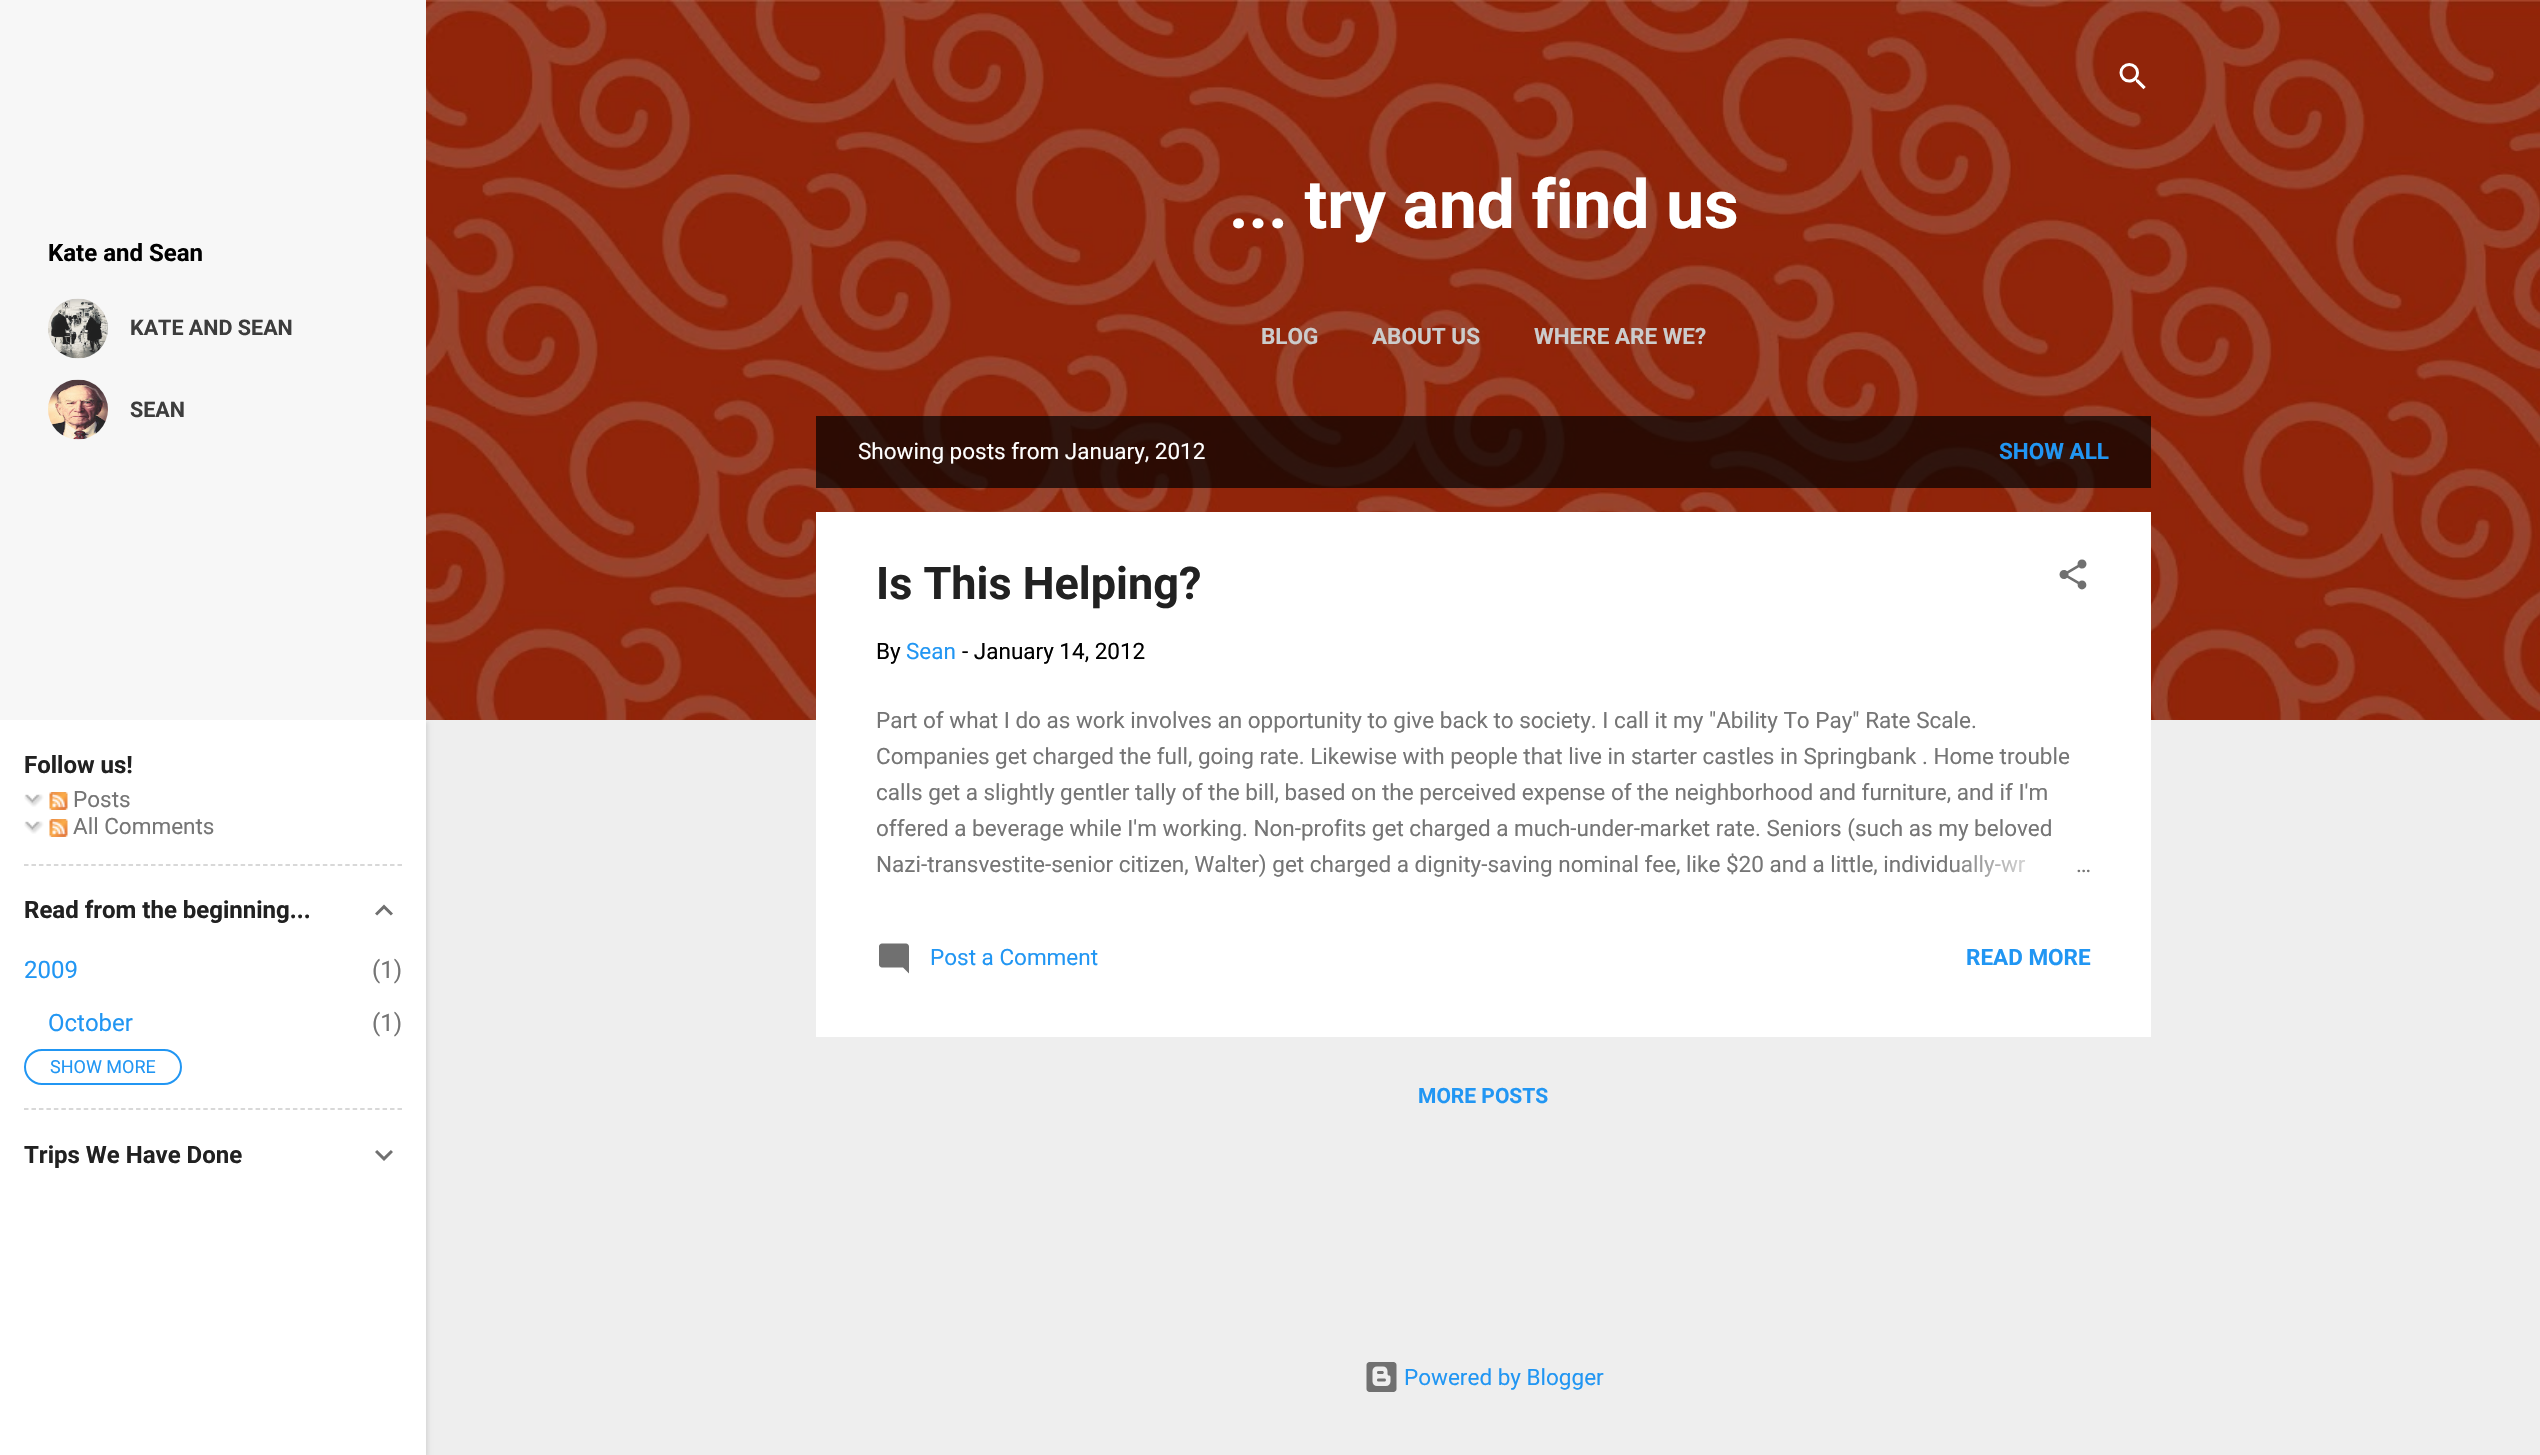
void draw(SkCanvas* canvas) {
	SkPaint fill;
	fill.setAntiAlias(true);
	auto makeFont = [&](const char* family, int weight, float size, bool italic = false) {
		SkFontStyle style(weight, SkFontStyle::kNormal_Width,
			italic ? SkFontStyle::kItalic_Slant : SkFontStyle::kUpright_Slant);
		SkFont result(fontMgr->matchFamilyStyle(family, style), size);
		result.setSubpixel(true);
		return result;
	};
	auto text = [&](const char* s, float x, float y, const SkFont& font) {
		canvas->drawString(s, x, y, font, fill);
	};
	auto box = [&](float l, float t, float r, float b) {
		canvas->drawRect(SkRect::MakeLTRB(l, t, r, b), fill);
	};
	auto picture = [&](const char* path, float l, float t, float r, float b) {
		auto image = SkImages::DeferredFromEncodedData(SkData::MakeFromFileName(path));
		canvas->drawImageRect(image, SkRect::MakeLTRB(l, t, r, b), SkSamplingOptions());
	};
	canvas->clear(0xFFEEEEEE);
	picture("image6.png", 426, 0, 2540, 720);
	fill.setColor(0x1A000000);
	fill.setMaskFilter(SkMaskFilter::MakeBlur(kNormal_SkBlurStyle, 2));
	canvas->drawRect(SkRect::MakeLTRB(2, 722, 428, 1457), fill);
	fill.setMaskFilter(nullptr);
	fill.setColor(0xFFFFFFFF);
	box(0, 720, 426, 1455);
	fill.setColor(0xFFF7F7F7);
	box(0, 0, 426, 720);
	picture("image0.png", 48, 298, 108, 359);
	picture("image1.png", 48, 379, 108, 440);
	picture("image2.png", 24, 794, 44, 807);
	picture("image3.png", 49, 792, 68, 810);
	picture("image2.png", 24, 821, 44, 834);
	picture("image3.png", 49, 819, 68, 837);
	fill.setStyle(SkPaint::kStroke_Style);
	fill.setStrokeWidth(1.5f);
	fill.setColor(0xFFCCCCCC);
	fill.setPathEffect(SkDashPathEffect::Make({{4.5f, 2.97f}}, 0));
	canvas->drawPath(SkPathBuilder().moveTo(24, 865).lineTo(402, 865).detach(), fill);
	fill.setPathEffect(nullptr);
	picture("image4.png", 375, 904, 393, 916);
	fill.setStrokeWidth(2);
	fill.setColor(0xFF2196F3);
	canvas->drawRoundRect(SkRect::MakeLTRB(25, 1050, 181, 1084), 17, 17, fill);
	fill.setStrokeWidth(1.5f);
	fill.setColor(0xFFCCCCCC);
	fill.setPathEffect(SkDashPathEffect::Make({{4.5f, 2.97f}}, 0));
	canvas->drawPath(SkPathBuilder().moveTo(24, 1109).lineTo(402, 1109).detach(), fill);
	fill.setPathEffect(nullptr);
	picture("image5.png", 375, 1150, 393, 1161);
	picture("image7.png", 2119, 63, 2146, 90);
	fill.setStyle(SkPaint::kFill_Style);
	fill.setColor(0xB3000000);
	box(816, 416, 2151, 488);
	fill.setColor(0xFFFFFFFF);
	box(816, 512, 2151, 1037);
	picture("image8.png", 2059, 559, 2087, 590);
	picture("image9.png", 879, 943, 909, 974);
	picture("image10.png", 1366, 1362, 1397, 1392);
	auto font1 = makeFont("Roboto", 700, 24);
	fill.setColor(0xFF000000);
	text("Kate and Sean", 48, 261, font1);
	auto font2 = makeFont("Roboto", 700, 21.5f);
	fill.setColor(0xFF3D3D3D);
	text("KATE AND SEAN", 130, 335, font2);
	text("SEAN", 130, 417, font2);
	fill.setColor(0xFF212121);
	text("Follow us!", 24, 773, font1);
	auto font3 = makeFont("Roboto", 400, 22.5f);
	fill.setColor(0xFF757575);
	text("Posts", 73, 807, font3);
	text("All Comments", 73, 834, font3);
	fill.setColor(0xFF212121);
	text("Read from the beginning...", 24, 918, font1);
	auto font4 = makeFont("Roboto", 400, 24);
	fill.setColor(0xFF2196F3);
	text("2009", 24, 978, font4);
	fill.setColor(0xFF757575);
	text("(1)", 372, 978, font4);
	fill.setColor(0xFF2196F3);
	text("October", 48, 1031, font4);
	fill.setColor(0xFF757575);
	text("(1)", 372, 1031, font4);
	auto font5 = makeFont("Roboto", 400, 18);
	fill.setColor(0xFF2196F3);
	text("SHOW MORE", 50, 1073, font5);
	fill.setColor(0xFF212121);
	text("Trips We Have Done", 24, 1163, font1);
	auto font6 = makeFont("Roboto", 700, 67.5f);
	fill.setColor(0xFFFFFFFF);
	text("... try and find us", 1229, 228, font6);
	auto font7 = makeFont("Roboto", 700, 22.5f);
	fill.setColor(0xFFCCCCCC);
	text("BLOG", 1261, 344, font7);
	text("ABOUT US", 1372, 344, font7);
	text("WHERE ARE WE?", 1534, 344, font7);
	fill.setColor(0xFFFFFFFF);
	text("Showing posts from January, 2012", 858, 459, font3);
	fill.setColor(0xFF2196F3);
	text("SHOW ALL", 1999, 459, font7);
	auto font8 = makeFont("Roboto", 700, 45);
	fill.setColor(0xFF212121);
	text("Is This Helping?", 876, 599, font8);
	fill.setColor(0xFF000000);
	text("By", 876, 659, font3);
	fill.setColor(0xFF2196F3);
	text("Sean", 906, 659, font3);
	fill.setColor(0xFF000000);
	text("- January 14, 2012", 962, 659, font3);
	fill.setColor(0xFF757575);
	text("Part of what I do as work involves an opportunity to give back to society. I call it my \"Ability To Pay\" Rate Scale.", 876, 728, font3);
	text("Companies get charged the full, going rate. Likewise with people that live in starter castles in Springbank . Home trouble", 876, 764, font3);
	text("calls get a slightly gentler tally of the bill, based on the perceived expense of the neighborhood and furniture, and if I'm", 876, 800, font3);
	text("offered a beverage while I'm working. Non-profits get charged a much-under-market rate. Seniors (such as my beloved", 876, 836, font3);
	text("Nazi-transvestite-senior citizen, Walter) get charged a dignity-saving nominal fee, like $20 and a little, individually-wr", 876, 872, font3);
	{
		const SkColor colors[] = {0xFFFFFFFF, 0xFFFFFFFF, 0x00FFFFFF};
		const float stops[] = {0, 0.2f, 1};
		const SkPoint ends[] = {{2091, 866}, {1947, 866}};
		fill.setShader(SkGradientShader::MakeLinear(ends, colors, stops, 3, SkTileMode::kClamp));
		fill.setAlpha(255);
	}
	box(1950, 855, 2026, 877);
	fill.setShader(nullptr);
	fill.setColor(0xFF757575);
	text("…", 2076, 872, font3);
	fill.setColor(0xFF2196F3);
	text("Post a Comment", 930, 965, font3);
	text("READ MORE", 1966, 965, font7);
	auto font9 = makeFont("Roboto", 700, 21);
	text("MORE POSTS", 1418, 1103, font9);
	text("Powered by Blogger", 1404, 1385, font3);
}
